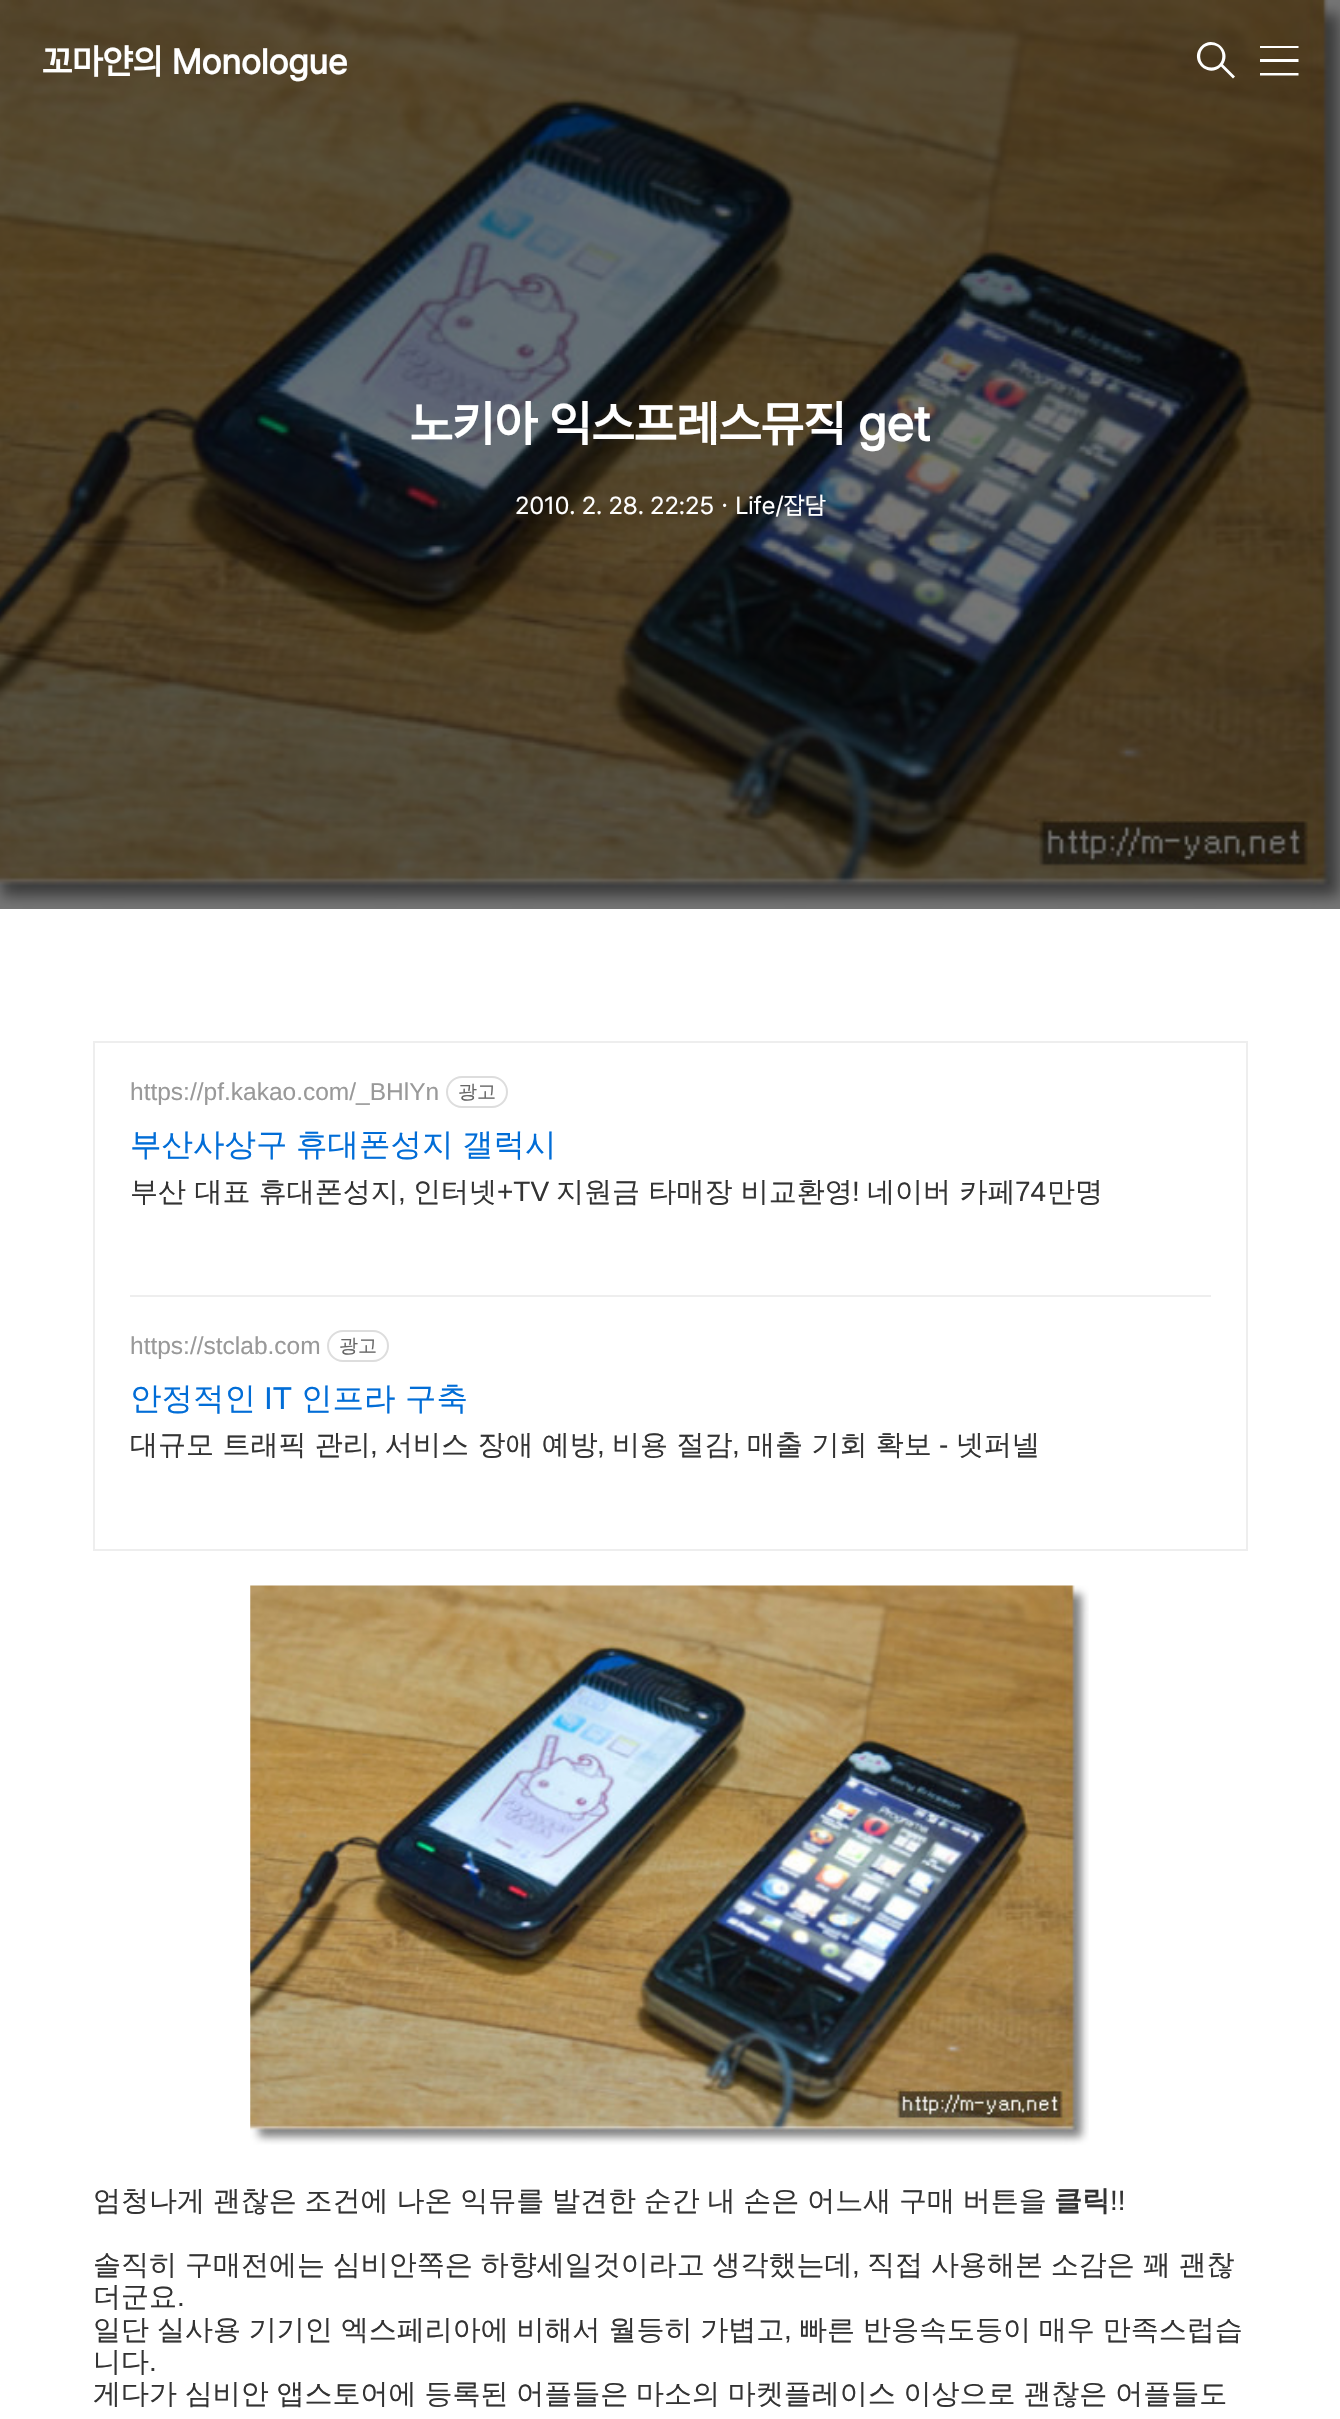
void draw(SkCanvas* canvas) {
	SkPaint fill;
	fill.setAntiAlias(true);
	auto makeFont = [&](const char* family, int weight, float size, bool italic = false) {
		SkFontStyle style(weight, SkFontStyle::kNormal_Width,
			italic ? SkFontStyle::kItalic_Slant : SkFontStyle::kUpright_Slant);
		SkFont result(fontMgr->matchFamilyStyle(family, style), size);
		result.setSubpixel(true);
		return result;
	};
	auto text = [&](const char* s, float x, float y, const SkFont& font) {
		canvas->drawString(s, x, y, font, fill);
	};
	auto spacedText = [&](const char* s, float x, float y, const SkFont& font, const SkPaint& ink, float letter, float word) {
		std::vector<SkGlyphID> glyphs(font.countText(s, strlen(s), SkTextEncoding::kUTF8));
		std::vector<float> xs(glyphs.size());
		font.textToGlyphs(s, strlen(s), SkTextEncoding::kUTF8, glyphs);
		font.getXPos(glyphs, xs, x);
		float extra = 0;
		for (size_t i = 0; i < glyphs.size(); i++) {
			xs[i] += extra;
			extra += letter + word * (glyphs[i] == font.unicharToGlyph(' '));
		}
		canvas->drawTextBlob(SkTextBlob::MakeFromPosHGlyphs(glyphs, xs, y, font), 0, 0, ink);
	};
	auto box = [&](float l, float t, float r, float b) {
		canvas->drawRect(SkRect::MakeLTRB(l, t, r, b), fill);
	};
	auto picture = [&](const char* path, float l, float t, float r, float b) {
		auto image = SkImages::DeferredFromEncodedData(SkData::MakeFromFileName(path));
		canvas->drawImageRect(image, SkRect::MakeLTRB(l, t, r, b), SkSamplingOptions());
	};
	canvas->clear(0xFFFFFFFF);
	picture("image0.png", 0, 0, 1340, 909);
	fill.setColor(0xFFFFFFFF);
	canvas->drawPath(SkPathBuilder(SkPathFillType::kEvenOdd).moveTo(1235, 76.5f).lineTo(1233, 78.5f).lineTo(1221, 66.5f).cubicTo(1208, 79, 1189, 60.5f, 1200.5f, 47).cubicTo(1212, 33.5f, 1233, 50, 1223, 64.5f).close().moveTo(1211.5f, 45).cubicTo(1196.5f, 45, 1196.5f, 67.5f, 1211.5f, 67.5f).cubicTo(1226, 67.5f, 1226, 45, 1211.5f, 45).close().detach(), fill);
	canvas->save();
	canvas->clipRect(SkRect::MakeLTRB(1260, 46, 1299, 77));
	canvas->drawPath(SkPathBuilder(SkPathFillType::kEvenOdd).moveTo(1260, 45.5f).lineTo(1298.5f, 45.5f).lineTo(1298.5f, 48).lineTo(1260, 48).close().moveTo(1260, 59).lineTo(1298.5f, 59).lineTo(1298.5f, 62).lineTo(1260, 62).close().moveTo(1260, 73).lineTo(1298.5f, 73).lineTo(1298.5f, 75.5f).lineTo(1260, 75.5f).close().detach(), fill);
	canvas->restore();
	fill.setStyle(SkPaint::kStroke_Style);
	fill.setStrokeWidth(2);
	fill.setColor(0xFFEEEEEE);
	canvas->drawRect(SkRect::MakeLTRB(94, 1042, 1247, 1550), fill);
	fill.setColor(0xFFDDDDDD);
	canvas->drawRoundRect(SkRect::MakeLTRB(447, 1077, 507, 1107), 15, 15, fill);
	fill.setStyle(SkPaint::kFill_Style);
	fill.setColor(0xFFEEEEEE);
	box(130, 1295, 1211, 1297);
	fill.setStyle(SkPaint::kStroke_Style);
	fill.setColor(0xFFDDDDDD);
	canvas->drawRoundRect(SkRect::MakeLTRB(328, 1331, 388, 1361), 15, 15, fill);
	picture("image1.png", 250, 1585, 1089, 2145);
	auto font1 = makeFont("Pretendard", 700, 35);
	fill.setStyle(SkPaint::kFill_Style);
	fill.setColor(0xFFFFFFFF);
	text("꼬마얀의 Monologue", 42, 74, font1);
	auto font2 = makeFont("Pretendard", 700, 49);
	text("노키아 익스프레스뮤직 get", 410, 441, font2);
	auto font3 = makeFont("Pretendard", 400, 24.5f);
	text("2010. 2. 28. 22:25ㆍLife/잡담", 515, 514, font3);
	auto font4 = makeFont("Liberation Sans", 400, 24.5f);
	fill.setColor(0xFF999999);
	text("https://pf.kakao.com/_BHlYn", 130, 1100, font4);
	auto font5 = makeFont("WenQuanYi Zen Hei", 500, 19);
	fill.setColor(0xFF666666);
	text("광고", 458, 1098, font5);
	auto font6 = makeFont("WenQuanYi Zen Hei", 500, 31.5f);
	fill.setColor(0xFF016DD7);
	spacedText("부산사상구 휴대폰성지 갤럭시", 130, 1155, font6, fill, 0, -1);
	auto font7 = makeFont("WenQuanYi Zen Hei", 500, 28);
	fill.setColor(0xFF333333);
	text("부산 대표 휴대폰성지", 130, 1201, font7);
	auto font8 = makeFont("Liberation Sans", 400, 28);
	text(",", 398, 1201, font8);
	text("인터넷", 413, 1201, font7);
	text("+TV", 497, 1201, font8);
	text("지원금 타매장 비교환영", 556, 1201, font7);
	text("!", 852, 1201, font8);
	text("네이버 카페", 867, 1201, font7);
	text("74", 1015, 1201, font8);
	text("만명", 1047, 1201, font7);
	fill.setColor(0xFF999999);
	text("https://stclab.com", 130, 1354, font4);
	fill.setColor(0xFF666666);
	text("광고", 339, 1352, font5);
	fill.setColor(0xFF016DD7);
	text("안정적인", 130, 1409, font6);
	auto font9 = makeFont("Liberation Sans", 400, 31.5f);
	text("IT", 264, 1409, font9);
	text("인프라 구축", 301, 1409, font6);
	fill.setColor(0xFF333333);
	text("대규모 트래픽 관리", 130, 1454, font7);
	text("서비스 장애 예방", 385, 1454, font7);
	text("비용 절감", 612, 1454, font7);
	text("매출 기회 확보", 747, 1454, font7);
	text("-", 939, 1454, font8);
	text("넷퍼넬", 956, 1454, font7);
	text(",", 370, 1454, font8);
	text(",", 597, 1454, font8);
	text(",", 732, 1454, font8);
	spacedText("엄청나게 괜찮은 조건에 나온 익뮤를 발견한 순간 내 손은 어느새 구매 버튼을", 93, 2210, font7, fill, 0, -0.6f);
	auto font10 = makeFont("WenQuanYi Zen Hei", 700, 28);
	text("클릭", 1054, 2210, font10);
	text("!!", 1110, 2210, font8);
	spacedText("솔직히 구매전에는 심비안쪽은 하향세일것이라고 생각했는데", 93, 2274, font7, fill, 0, -0.5f);
	text(",", 852, 2274, font8);
	spacedText("직접 사용해본 소감은 꽤 괜찮", 867, 2274, font7, fill, 0, -0.5f);
	text("더군요", 93, 2306, font7);
	text(".", 177, 2306, font8);
	spacedText("일단 실사용 기기인 엑스페리아에 비해서 월등히 가볍고", 93, 2339, font7, fill, 0, -0.5f);
	text(",", 784, 2339, font8);
	spacedText("빠른 반응속도등이 매우 만족스럽습", 799, 2339, font7, fill, 0, -0.5f);
	text("니다", 93, 2371, font7);
	text(".", 149, 2371, font8);
	spacedText("게다가 심비안 앱스토어에 등록된 어플들은 마소의 마켓플레이스 이상으로 괜찮은 어플들도", 93, 2403, font7, fill, 0, -0.6f);
}
